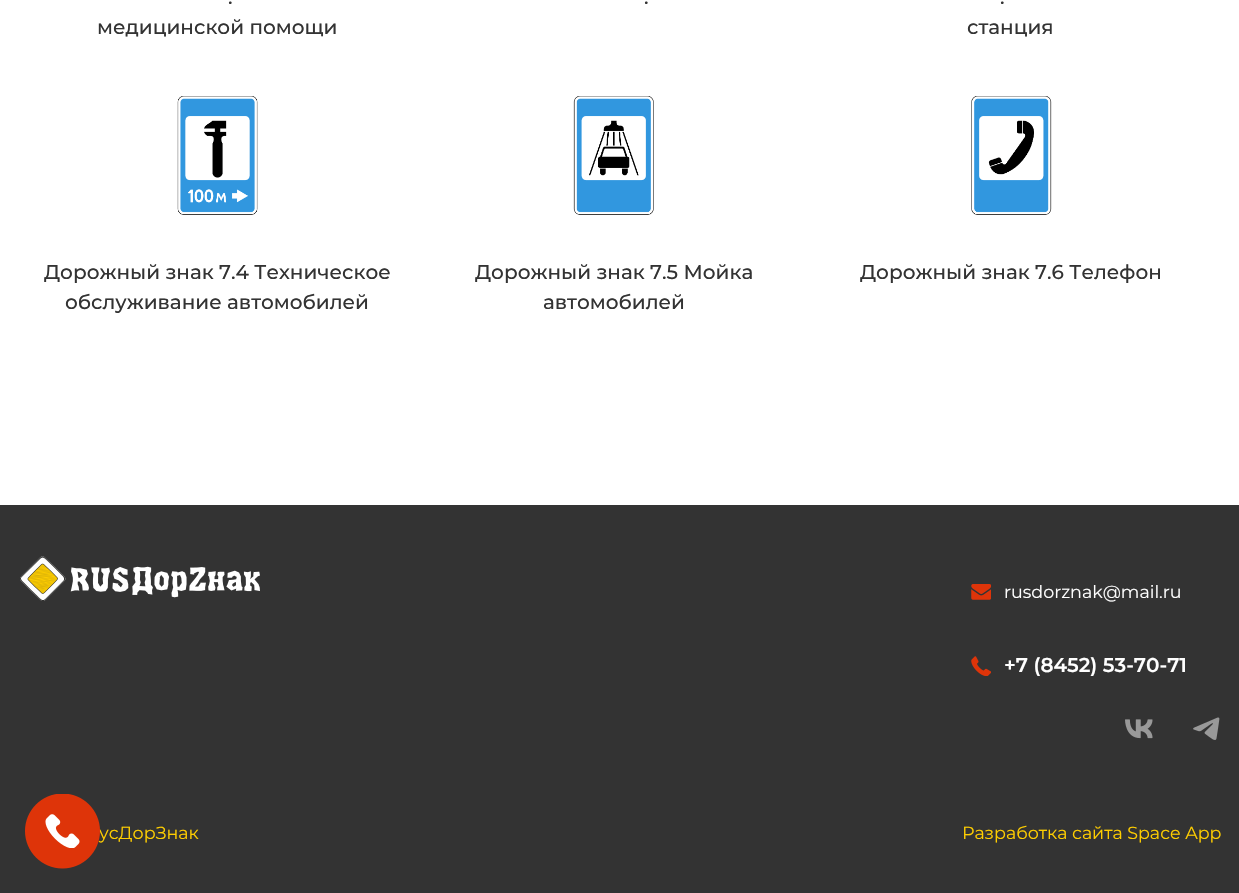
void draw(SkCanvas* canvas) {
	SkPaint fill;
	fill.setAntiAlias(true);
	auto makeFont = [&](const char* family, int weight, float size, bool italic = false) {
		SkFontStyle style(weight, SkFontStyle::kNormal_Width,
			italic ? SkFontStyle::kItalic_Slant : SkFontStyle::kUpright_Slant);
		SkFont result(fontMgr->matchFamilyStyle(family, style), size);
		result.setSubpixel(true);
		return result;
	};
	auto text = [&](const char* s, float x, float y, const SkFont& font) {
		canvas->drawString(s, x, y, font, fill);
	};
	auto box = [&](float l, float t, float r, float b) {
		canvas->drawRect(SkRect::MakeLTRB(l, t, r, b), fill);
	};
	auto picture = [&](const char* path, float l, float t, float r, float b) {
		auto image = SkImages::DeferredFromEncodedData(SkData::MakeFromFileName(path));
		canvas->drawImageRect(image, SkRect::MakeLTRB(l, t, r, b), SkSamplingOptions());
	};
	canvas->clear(0xFFFFFFFF);
	picture("image0.png", 177, 96, 258, 215);
	picture("image1.png", 573, 96, 654, 215);
	picture("image2.png", 971, 96, 1052, 215);
	fill.setColor(0xFF333333);
	box(0, 505, 1239, 893);
	picture("image4.png", 20, 556, 260, 601);
	picture("image5.png", 971, 584, 991, 600);
	picture("image6.png", 971, 656, 991, 676);
	picture("image7.png", 1125, 719, 1153, 739);
	picture("image8.png", 1193, 717, 1220, 740);
	auto font1 = makeFont("Montserrat", 500, 20);
	text(".", 228, 4, font1);
	text("медицинской помощи", 97, 34, font1);
	text(".", 644, 4, font1);
	text(".", 1000, 4, font1);
	text("станция", 967, 34, font1);
	text("Дорожный знак 7.4 Техническое", 44, 279, font1);
	text("обслуживание автомобилей", 65, 309, font1);
	text("Дорожный знак 7.5 Мойка", 475, 279, font1);
	text("автомобилей", 543, 309, font1);
	text("Дорожный знак 7.6 Телефон", 860, 279, font1);
	auto font2 = makeFont("Montserrat", 400, 17.5f);
	fill.setColor(0xFFFFFFFF);
	text("rusdorznak@mail.ru", 1004, 598, font2);
	auto font3 = makeFont("Montserrat", 600, 20);
	text("+7 (8452) 53-70-71", 1004, 672, font3);
	fill.setColor(0xFFFFCE00);
	text("усДорЗнак", 99, 839, font2);
	picture("image3.png", 25, 794, 100, 869);
	text("Разработка сайта Space App", 962, 839, font2);
}
